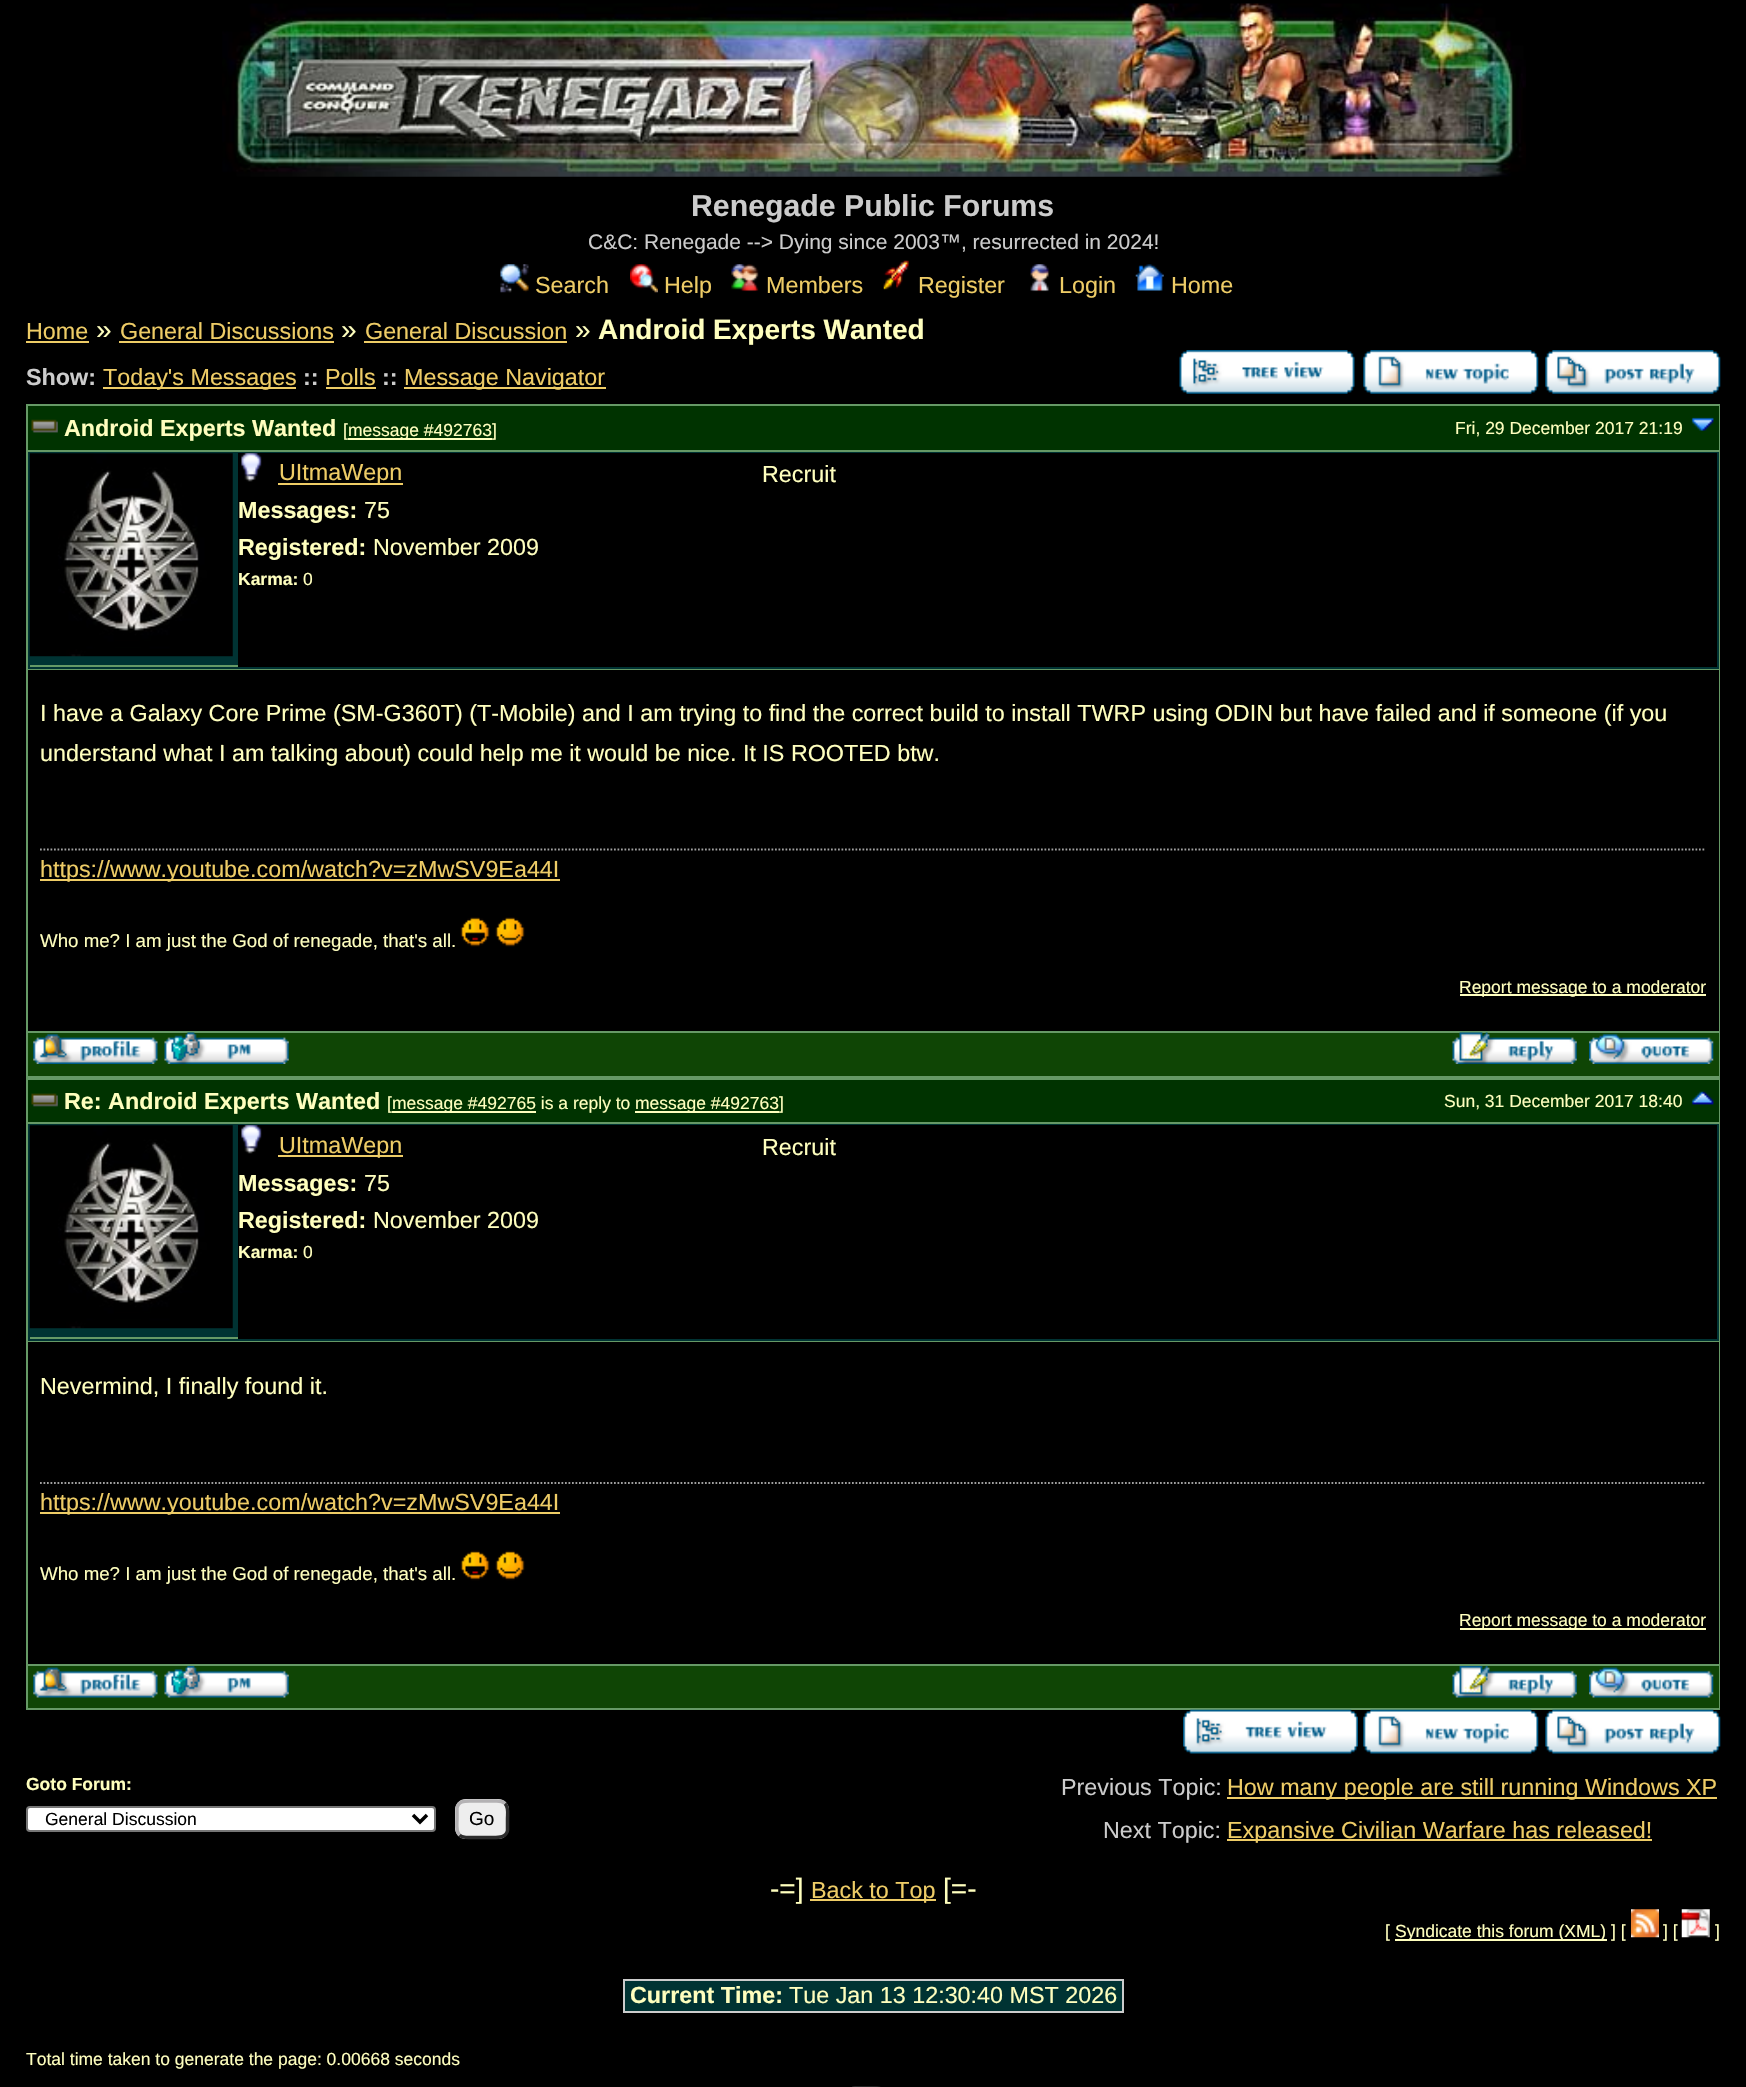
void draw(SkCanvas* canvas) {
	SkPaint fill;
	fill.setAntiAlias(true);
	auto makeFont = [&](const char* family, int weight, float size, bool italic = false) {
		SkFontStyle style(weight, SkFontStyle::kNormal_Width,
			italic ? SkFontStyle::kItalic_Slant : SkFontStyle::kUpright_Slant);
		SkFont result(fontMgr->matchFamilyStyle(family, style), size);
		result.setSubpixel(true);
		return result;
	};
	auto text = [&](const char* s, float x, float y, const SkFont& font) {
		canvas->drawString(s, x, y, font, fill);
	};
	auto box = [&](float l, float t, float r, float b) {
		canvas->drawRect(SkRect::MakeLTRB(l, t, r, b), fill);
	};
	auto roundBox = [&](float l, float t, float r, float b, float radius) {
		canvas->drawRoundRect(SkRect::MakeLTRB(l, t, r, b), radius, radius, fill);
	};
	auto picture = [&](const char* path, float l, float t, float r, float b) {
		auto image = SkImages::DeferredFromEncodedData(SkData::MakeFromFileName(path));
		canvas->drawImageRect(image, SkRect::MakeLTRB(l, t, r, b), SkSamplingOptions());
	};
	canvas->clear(0xFF000000);
	picture("image0.png", 222, 3, 1526, 177);
	picture("image1.png", 500, 264, 529, 293);
	picture("image2.png", 630, 264, 658, 293);
	picture("image3.png", 731, 264, 759, 292);
	picture("image4.png", 883, 260, 909, 290);
	picture("image5.png", 1030, 264, 1050, 292);
	picture("image6.png", 1135, 264, 1164, 291);
	fill.setColor(0xFFEECC66);
	box(26, 341, 89, 343);
	box(119, 341, 334, 343);
	box(364, 341, 567, 343);
	box(103, 387, 296, 389);
	box(326, 387, 376, 389);
	box(404, 387, 606, 389);
	picture("image7.png", 1179, 350, 1355, 394);
	picture("image8.png", 1363, 350, 1539, 394);
	picture("image9.png", 1545, 350, 1721, 394);
	fill.setColor(0xFF669966);
	box(26, 404, 1720, 1710);
	fill.setColor(0xFF003300);
	box(28, 406, 1719, 450);
	picture("image10.png", 31, 419, 58, 433);
	fill.setColor(0xFFFFFFBE);
	box(348, 438, 492, 440);
	picture("image11.png", 1691, 417, 1714, 431);
	fill.setColor(0xFF003333);
	box(28, 452, 1719, 669);
	fill.setColor(0xFF669966);
	box(30, 665, 238, 667);
	picture("image12.png", 29, 453, 233, 657);
	fill.setColor(0xFF000000);
	box(238, 453, 1717, 667);
	picture("image13.png", 241, 453, 262, 482);
	fill.setColor(0xFFEECC66);
	box(278, 483, 403, 485);
	fill.setColor(0xFF000000);
	box(28, 670, 1719, 1031);
	fill.setStyle(SkPaint::kStroke_Style);
	fill.setStrokeWidth(1.8f);
	fill.setColor(0xFFA0A0A0);
	fill.setPathEffect(SkDashPathEffect::Make({{1.75f, 1.75f}}, 0));
	canvas->drawPath(SkPathBuilder().moveTo(40, 849.5f).lineTo(1706, 849.5f).detach(), fill);
	fill.setPathEffect(nullptr);
	fill.setStyle(SkPaint::kFill_Style);
	fill.setColor(0xFFEECC66);
	box(40, 879, 560, 881);
	picture("image14.png", 460, 917, 490, 947);
	picture("image15.png", 495, 917, 525, 947);
	fill.setColor(0xFFFFFFBE);
	box(1460, 994, 1706, 996);
	fill.setColor(0xFF0F4505);
	box(28, 1033, 1719, 1076);
	picture("image16.png", 33, 1033, 158, 1064);
	picture("image17.png", 164, 1032, 289, 1064);
	picture("image18.png", 1452, 1032, 1577, 1064);
	picture("image19.png", 1589, 1033, 1714, 1064);
	fill.setColor(0xFF003300);
	box(28, 1080, 1719, 1122);
	picture("image20.png", 31, 1093, 58, 1107);
	fill.setColor(0xFFFFFFBE);
	box(392, 1111, 536, 1113);
	box(635, 1111, 779, 1113);
	picture("image21.png", 1691, 1091, 1714, 1105);
	fill.setColor(0xFF003333);
	box(28, 1124, 1719, 1341);
	fill.setColor(0xFF669966);
	box(30, 1337, 238, 1339);
	picture("image12.png", 29, 1125, 233, 1329);
	fill.setColor(0xFF000000);
	box(238, 1125, 1717, 1339);
	picture("image13.png", 241, 1125, 262, 1154);
	fill.setColor(0xFFEECC66);
	box(278, 1155, 403, 1157);
	fill.setColor(0xFF000000);
	box(28, 1342, 1719, 1664);
	fill.setStyle(SkPaint::kStroke_Style);
	fill.setColor(0xFFA0A0A0);
	fill.setPathEffect(SkDashPathEffect::Make({{1.75f, 1.75f}}, 0));
	canvas->drawPath(SkPathBuilder().moveTo(40, 1483).lineTo(1706, 1483).detach(), fill);
	fill.setPathEffect(nullptr);
	fill.setStyle(SkPaint::kFill_Style);
	fill.setColor(0xFFEECC66);
	box(40, 1512, 560, 1514);
	picture("image22.png", 460, 1550, 490, 1581);
	picture("image23.png", 495, 1550, 525, 1581);
	fill.setColor(0xFFFFFFBE);
	box(1460, 1628, 1706, 1630);
	fill.setColor(0xFF0F4505);
	box(28, 1666, 1719, 1708);
	picture("image24.png", 33, 1667, 158, 1698);
	picture("image25.png", 164, 1666, 289, 1698);
	picture("image26.png", 1452, 1666, 1577, 1698);
	picture("image27.png", 1589, 1667, 1714, 1698);
	picture("image28.png", 1183, 1709, 1358, 1754);
	picture("image29.png", 1363, 1709, 1539, 1754);
	picture("image30.png", 1545, 1709, 1721, 1754);
	fill.setColor(0xFFEECC66);
	box(1227, 1797, 1717, 1799);
	box(1227, 1839, 1652, 1841);
	fill.setColor(0xFFFFFFFF);
	canvas->drawRoundRect(SkRect::MakeLTRB(27, 1807, 435, 1831), 3, 3, fill);
	fill.setStyle(SkPaint::kStroke_Style);
	fill.setStrokeWidth(2);
	fill.setColor(0xFF767676);
	canvas->drawRoundRect(SkRect::MakeLTRB(27, 1807, 435, 1831), 3, 3, fill);
	fill.setStrokeWidth(3.5f);
	fill.setColor(0xFF000000);
	canvas->drawPath(SkPathBuilder().moveTo(413, 1815).lineTo(420, 1822).lineTo(427, 1815).detach(), fill);
	fill.setStyle(SkPaint::kFill_Style);
	fill.setColor(0xFFEEEEEE);
	roundBox(455, 1799, 509, 1839, 11);
	fill.setStyle(SkPaint::kStroke_Style);
	fill.setColor(0xFF2D2D2D);
	canvas->drawPath(SkPathBuilder().moveTo(505, 1803.5f).cubicTo(509, 1807.5f, 507.5f, 1814, 507.5f, 1819).lineTo(507.5f, 1830.5f).cubicTo(506, 1837.5f, 499, 1837.5f, 493, 1837.5f).lineTo(471, 1837.5f).cubicTo(467, 1837.5f, 462.5f, 1838, 459.5f, 1835).detach(), fill);
	fill.setColor(0xFFB4B2B4);
	canvas->drawPath(SkPathBuilder().moveTo(459.5f, 1835).cubicTo(455.5f, 1831, 457, 1824, 457, 1819).lineTo(457, 1808).cubicTo(458.5f, 1800.5f, 465, 1801, 471, 1801).lineTo(493, 1801).cubicTo(497.5f, 1801, 501.5f, 1800, 505, 1803.5f).detach(), fill);
	fill.setStyle(SkPaint::kFill_Style);
	fill.setColor(0xFFEECC66);
	box(810, 1899, 936, 1901);
	fill.setColor(0xFFFFFFBE);
	box(1395, 1939, 1607, 1941);
	picture("image31.png", 1631, 1909, 1659, 1938);
	picture("image32.png", 1681, 1909, 1710, 1938);
	fill.setColor(0xFF003333);
	box(625, 1981, 1122, 2011);
	fill.setColor(0xFFCCCCCC);
	box(623, 1979, 1124, 1981);
	box(623, 2011, 782, 2013);
	box(623, 1979, 625, 2013);
	box(1122, 1979, 1124, 2013);
	box(782, 2011, 1124, 2013);
	picture("image33.png", 852, 2086, 881, 2087);
	auto font1 = makeFont("Liberation Sans", 700, 30.25f);
	text("Renegade Public Forums", 691, 216, font1);
	auto font2 = makeFont("Liberation Sans", 400, 21);
	text("C&C: Renegade --> Dying since 2003™, resurrected in 2024!", 588, 249, font2);
	auto font3 = makeFont("Liberation Sans", 400, 23.33f);
	fill.setColor(0xFFEECC66);
	text("Search", 535, 293, font3);
	text("Help", 664, 293, font3);
	text("Members", 766, 293, font3);
	text("Register", 918, 293, font3);
	text("Login", 1059, 293, font3);
	text("Home", 1171, 293, font3);
	text("Home", 26, 339, font3);
	auto font4 = makeFont("Liberation Sans", 400, 28);
	fill.setColor(0xFFFFFFBE);
	text("»", 96, 339, font4);
	fill.setColor(0xFFEECC66);
	text("General Discussions", 120, 339, font3);
	fill.setColor(0xFFFFFFBE);
	text("»", 341, 339, font4);
	fill.setColor(0xFFEECC66);
	text("General Discussion", 365, 339, font3);
	fill.setColor(0xFFFFFFBE);
	text("»", 575, 339, font4);
	auto font5 = makeFont("Liberation Sans", 700, 28);
	text("Android Experts Wanted", 598, 339, font5);
	auto font6 = makeFont("Liberation Sans", 700, 23.33f);
	fill.setColor(0xFFCCCCCC);
	text("Show:", 26, 385, font6);
	fill.setColor(0xFFEECC66);
	text("Today's Messages", 103, 385, font3);
	fill.setColor(0xFFCCCCCC);
	text("::", 303, 385, font6);
	fill.setColor(0xFFEECC66);
	text("Polls", 325, 385, font3);
	fill.setColor(0xFFCCCCCC);
	text("::", 382, 385, font6);
	fill.setColor(0xFFEECC66);
	text("Message Navigator", 404, 385, font3);
	fill.setColor(0xFFFFFFBE);
	text("Android Experts Wanted", 64, 436, font6);
	auto font7 = makeFont("Liberation Sans", 400, 17.5f);
	text("[", 343, 436, font7);
	text("message #492763]", 348, 436, font7);
	text("Fri, 29 December 2017 21:19", 1455, 434, font7);
	fill.setColor(0xFFEECC66);
	text("UItmaWepn", 279, 480, font3);
	fill.setColor(0xFFFFFFBE);
	text("Messages:", 238, 518, font6);
	text("75", 364, 518, font3);
	text("Registered:", 238, 555, font6);
	text("November 2009", 373, 555, font3);
	auto font8 = makeFont("Liberation Sans", 700, 17.5f);
	text("Karma:", 238, 585, font8);
	text("0", 303, 585, font7);
	text("Recruit", 762, 482, font3);
	text("I have a Galaxy Core Prime (SM-G360T) (T-Mobile) and I am trying to find the correct build to install TWRP using ODIN but have failed and if someone (if you", 40, 721, font3);
	text("understand what I am talking about) could help me it would be nice. It IS ROOTED btw.", 40, 761, font3);
	fill.setColor(0xFFEECC66);
	text("https://www.youtube.com/watch?v=zMwSV9Ea44I", 40, 877, font3);
	auto font9 = makeFont("Liberation Sans", 400, 18.7f);
	fill.setColor(0xFFFFFFBE);
	text("Who me? I am just the God of renegade, that's all.", 40, 947, font9);
	text("Report message to a moderator", 1459, 993, font7);
	text("Re: Android Experts Wanted", 64, 1109, font6);
	text("[", 387, 1109, font7);
	text("message #492765 is a reply to", 392, 1109, font7);
	text("message #492763]", 635, 1109, font7);
	text("Sun, 31 December 2017 18:40", 1444, 1107, font7);
	fill.setColor(0xFFEECC66);
	text("UItmaWepn", 279, 1153, font3);
	fill.setColor(0xFFFFFFBE);
	text("Messages:", 238, 1191, font6);
	text("75", 364, 1191, font3);
	text("Registered:", 238, 1228, font6);
	text("November 2009", 373, 1228, font3);
	text("Karma:", 238, 1258, font8);
	text("0", 303, 1258, font7);
	text("Recruit", 762, 1155, font3);
	text("Nevermind, I finally found it.", 40, 1394, font3);
	fill.setColor(0xFFEECC66);
	text("https://www.youtube.com/watch?v=zMwSV9Ea44I", 40, 1510, font3);
	fill.setColor(0xFFFFFFBE);
	text("Who me? I am just the God of renegade, that's all.", 40, 1580, font9);
	text("Report message to a moderator", 1459, 1626, font7);
	text("Goto Forum:", 26, 1790, font8);
	fill.setColor(0xFFCCCCCC);
	text("Previous Topic:", 1061, 1795, font3);
	fill.setColor(0xFFEECC66);
	text("How many people are still running Windows XP", 1227, 1795, font3);
	fill.setColor(0xFFCCCCCC);
	text("Next Topic:", 1103, 1838, font3);
	fill.setColor(0xFFEECC66);
	text("Expansive Civilian Warfare has released!", 1227, 1838, font3);
	fill.setColor(0xFF000000);
	text("General Discussion", 45, 1825, font7);
	auto font10 = makeFont("Liberation Sans", 400, 19);
	text("Go", 469, 1825, font10);
	fill.setColor(0xFFFFFFBE);
	text("-=]", 770, 1898, font4);
	fill.setColor(0xFFEECC66);
	text("Back to Top", 811, 1898, font3);
	fill.setColor(0xFFFFFFBE);
	text("[=-", 943, 1898, font4);
	text("[", 1385, 1937, font7);
	text("Syndicate this forum (XML) ] [", 1395, 1937, font7);
	text("] [", 1663, 1937, font7);
	text("]", 1715, 1937, font7);
	text("Current Time:", 630, 2003, font6);
	text("Tue Jan 13 12:30:40 MST 2026", 789, 2003, font3);
	text("Total time taken to generate the page: 0.00668 seconds", 26, 2065, font7);
}
